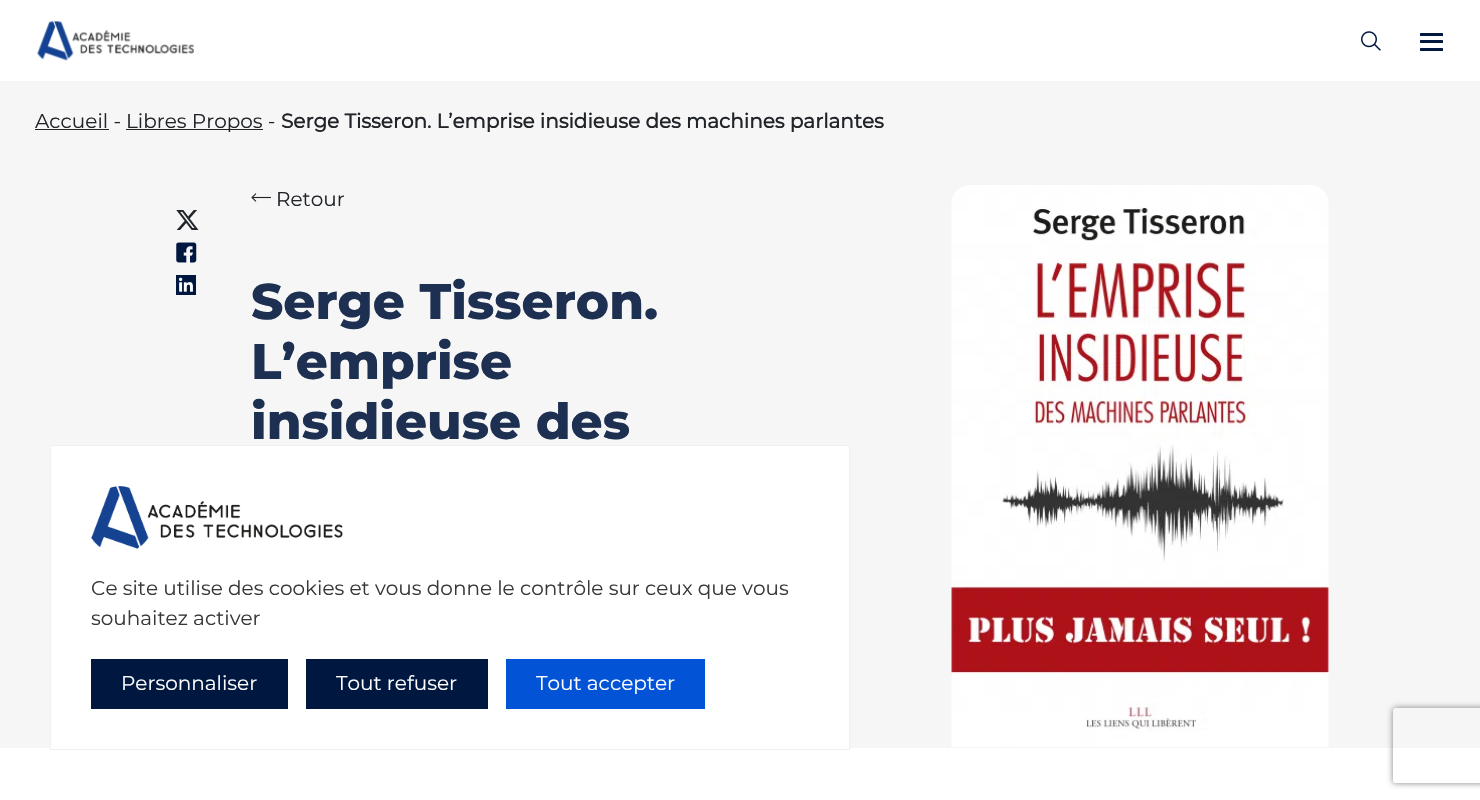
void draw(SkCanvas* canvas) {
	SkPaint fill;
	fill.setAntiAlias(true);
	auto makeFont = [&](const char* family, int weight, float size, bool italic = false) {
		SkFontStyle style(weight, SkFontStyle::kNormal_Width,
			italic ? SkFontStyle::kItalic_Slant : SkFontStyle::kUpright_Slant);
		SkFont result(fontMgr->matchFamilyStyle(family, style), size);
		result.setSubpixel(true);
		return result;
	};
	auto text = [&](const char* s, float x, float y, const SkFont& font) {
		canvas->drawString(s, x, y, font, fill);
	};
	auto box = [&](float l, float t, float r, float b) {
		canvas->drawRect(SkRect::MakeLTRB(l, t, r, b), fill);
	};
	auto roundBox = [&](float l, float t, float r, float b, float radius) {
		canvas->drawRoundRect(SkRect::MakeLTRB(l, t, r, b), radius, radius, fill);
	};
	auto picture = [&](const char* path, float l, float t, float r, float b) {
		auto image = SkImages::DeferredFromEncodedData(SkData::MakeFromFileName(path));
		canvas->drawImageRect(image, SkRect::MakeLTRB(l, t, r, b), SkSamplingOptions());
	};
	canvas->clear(0xFFFFFFFF);
	picture("image0.png", 37, 21, 194, 61);
	picture("image1.png", 1361, 31, 1381, 51);
	fill.setColor(0xFF001840);
	roundBox(1420, 33, 1443, 36, 0.5f);
	roundBox(1420, 40, 1443, 43, 0.5f);
	roundBox(1420, 48, 1443, 51, 0.5f);
	fill.setColor(0xFFF6F6F6);
	box(0, 81, 1480, 748);
	fill.setColor(0xFF212529);
	box(35, 129, 109, 130);
	box(126, 129, 263, 130);
	picture("image2.png", 176, 210, 199, 230);
	picture("image3.png", 176, 242, 197, 263);
	fill.setColor(0xFF001840);
	box(176, 275, 196, 295);
	picture("image4.png", 178, 277, 193, 292);
	picture("image5.png", 251, 193, 271, 202);
	picture("image6.png", 951, 185, 1329, 747);
	fill.setColor(0xFFFFFFFF);
	box(51, 446, 849, 748);
	fill.setStyle(SkPaint::kStroke_Style);
	fill.setStrokeWidth(1);
	fill.setColor(0xFFF0F0F0);
	canvas->drawRect(SkRect::MakeLTRB(50.5f, 445.5f, 849.5f, 749.5f), fill);
	picture("image7.png", 91, 486, 343, 549);
	fill.setStyle(SkPaint::kFill_Style);
	fill.setColor(0xFF001840);
	box(91, 659, 288, 709);
	box(306, 659, 488, 709);
	fill.setColor(0xFF0353D6);
	box(506, 659, 705, 709);
	canvas->save();
	canvas->clipPath(SkPathBuilder(SkPathFillType::kEvenOdd).moveTo(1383, 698).lineTo(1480, 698).lineTo(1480, 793).lineTo(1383, 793).close().moveTo(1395.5f, 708).lineTo(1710.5f, 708).cubicTo(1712, 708, 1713, 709, 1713, 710.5f).lineTo(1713, 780.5f).cubicTo(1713, 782, 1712, 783, 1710.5f, 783).lineTo(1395.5f, 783).cubicTo(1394, 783, 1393, 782, 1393, 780.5f).lineTo(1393, 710.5f).cubicTo(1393, 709, 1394, 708, 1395.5f, 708).close().detach(), true);
	fill.setColor(0xFF808080);
	fill.setMaskFilter(SkMaskFilter::MakeBlur(kNormal_SkBlurStyle, 3));
	canvas->drawRoundRect(SkRect::MakeLTRB(1393, 708, 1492, 783), 2.5f, 2.5f, fill);
	fill.setMaskFilter(nullptr);
	canvas->restore();
	auto font1 = makeFont("Montserrat", 400, 20);
	fill.setColor(0xFF212529);
	text("Accueil -", 35, 128, font1);
	text("Libres Propos -", 126, 128, font1);
	auto font2 = makeFont("Montserrat", 700, 20);
	text("Serge Tisseron. L’emprise insidieuse des machines parlantes", 281, 128, font2);
	text("Retour", 276, 206, font1);
	auto font3 = makeFont("Montserrat", 800, 50);
	fill.setColor(0xFF1E3052);
	text("Serge Tisseron.", 251, 319, font3);
	text("L’emprise", 251, 379, font3);
	text("insidieuse des", 251, 439, font3);
	fill.setColor(0xFF383838);
	text("Ce site utilise des cookies et vous donne le contrôle sur ceux que vous", 91, 595, font1);
	text("souhaitez activer", 91, 625, font1);
	fill.setColor(0xFFFFFFFF);
	text("Personnaliser", 121, 690, font1);
	text("Tout refuser", 336, 690, font1);
	text("Tout accepter", 536, 690, font1);
}
